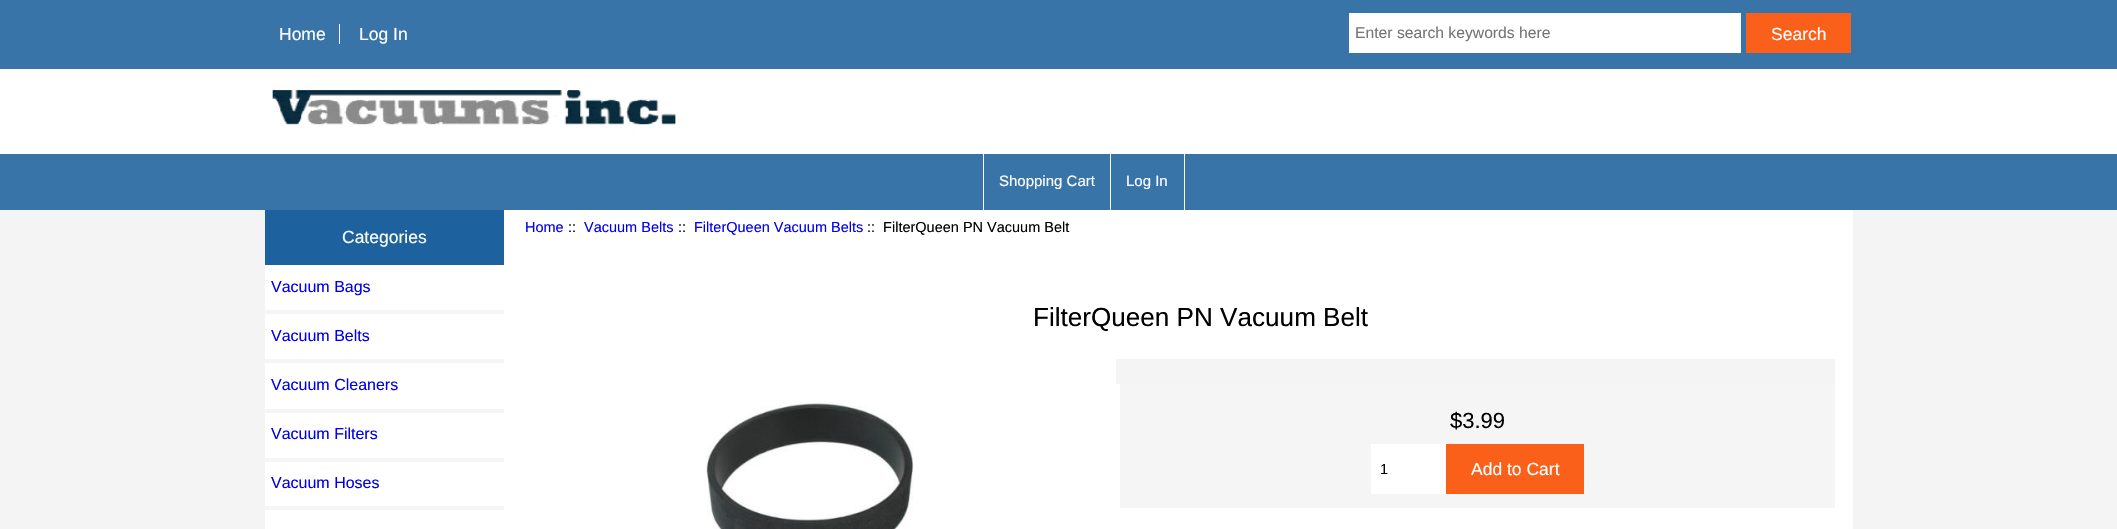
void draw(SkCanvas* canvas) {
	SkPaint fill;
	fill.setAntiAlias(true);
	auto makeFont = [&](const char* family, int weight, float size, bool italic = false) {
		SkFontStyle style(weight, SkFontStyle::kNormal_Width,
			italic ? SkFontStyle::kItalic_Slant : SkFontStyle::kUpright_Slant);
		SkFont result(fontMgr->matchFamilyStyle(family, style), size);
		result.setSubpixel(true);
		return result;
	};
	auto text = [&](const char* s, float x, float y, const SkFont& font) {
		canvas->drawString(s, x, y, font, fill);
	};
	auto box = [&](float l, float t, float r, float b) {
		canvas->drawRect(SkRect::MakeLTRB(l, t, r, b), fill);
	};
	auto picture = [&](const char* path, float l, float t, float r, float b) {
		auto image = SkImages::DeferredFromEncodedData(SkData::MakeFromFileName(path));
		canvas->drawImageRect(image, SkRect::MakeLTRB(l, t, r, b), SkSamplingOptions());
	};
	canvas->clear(0xFFF4F4F4);
	fill.setColor(0xFFFFFFFF);
	box(0, 69, 2117, 154);
	fill.setColor(0xFF3974A8);
	box(0, 0, 2117, 69);
	fill.setColor(0xFFFFFFFF);
	box(339, 24, 340, 44);
	box(1349, 13, 1741, 53);
	fill.setColor(0xFFFA601A);
	box(1746, 13, 1851, 53);
	picture("image0.png", 272, 90, 676, 133);
	fill.setColor(0xFF3974A8);
	box(0, 154, 2117, 210);
	fill.setColor(0xFFFFFFFF);
	box(983, 154, 984, 210);
	box(1184, 154, 1185, 210);
	box(1110, 154, 1111, 210);
	box(265, 210, 1853, 529);
	fill.setColor(0xFF1D629F);
	box(265, 210, 504, 265);
	fill.setColor(0xFFF5F5F5);
	box(265, 310, 504, 314);
	box(265, 359, 504, 363);
	box(265, 409, 504, 413);
	box(265, 458, 504, 462);
	box(265, 506, 504, 510);
	fill.setColor(0xFFF4F4F4);
	box(1116, 359, 1835, 384);
	picture("image1.png", 706, 401, 914, 529);
	fill.setColor(0xFFF5F5F5);
	box(1120, 384, 1835, 508);
	fill.setColor(0xFFFFFFFF);
	box(1371, 444, 1446, 494);
	fill.setColor(0xFFFA601A);
	box(1446, 444, 1584, 494);
	auto font1 = makeFont("Liberation Sans", 400, 17.5f);
	fill.setColor(0xFFFFFFFF);
	text("Home", 279, 40, font1);
	text("Log In", 359, 40, font1);
	auto font2 = makeFont("Liberation Sans", 400, 15.7f);
	fill.setColor(0xFF757575);
	text("Enter search keywords here", 1355, 38, font2);
	fill.setColor(0xFFFFFFFF);
	text("Search", 1771, 40, font1);
	auto font3 = makeFont("Liberation Sans", 400, 15);
	text("Shopping Cart", 999, 186, font3);
	text("Log In", 1126, 186, font3);
	text("Categories", 342, 243, font1);
	auto font4 = makeFont("Liberation Sans", 400, 16);
	fill.setColor(0xFF0000EE);
	text("Vacuum Bags", 271, 292, font4);
	text("Vacuum Belts", 271, 341, font4);
	text("Vacuum Cleaners", 271, 390, font4);
	text("Vacuum Filters", 271, 439, font4);
	text("Vacuum Hoses", 271, 488, font4);
	auto font5 = makeFont("Liberation Sans", 400, 14.5f);
	text("Home", 525, 232, font5);
	fill.setColor(0xFF000000);
	text("::", 568, 232, font5);
	fill.setColor(0xFF0000EE);
	text("Vacuum Belts", 584, 232, font5);
	fill.setColor(0xFF000000);
	text("::", 678, 232, font5);
	fill.setColor(0xFF0000EE);
	text("FilterQueen Vacuum Belts", 694, 232, font5);
	fill.setColor(0xFF000000);
	text("::  FilterQueen PN Vacuum Belt", 867, 232, font5);
	auto font6 = makeFont("Liberation Sans", 400, 26.1f);
	text("FilterQueen PN Vacuum Belt", 1033, 326, font6);
	auto font7 = makeFont("Liberation Sans", 400, 22);
	text("$3.99", 1450, 428, font7);
	text("1", 1380, 474, font5);
	fill.setColor(0xFFFFFFFF);
	text("Add to Cart", 1471, 475, font1);
}
